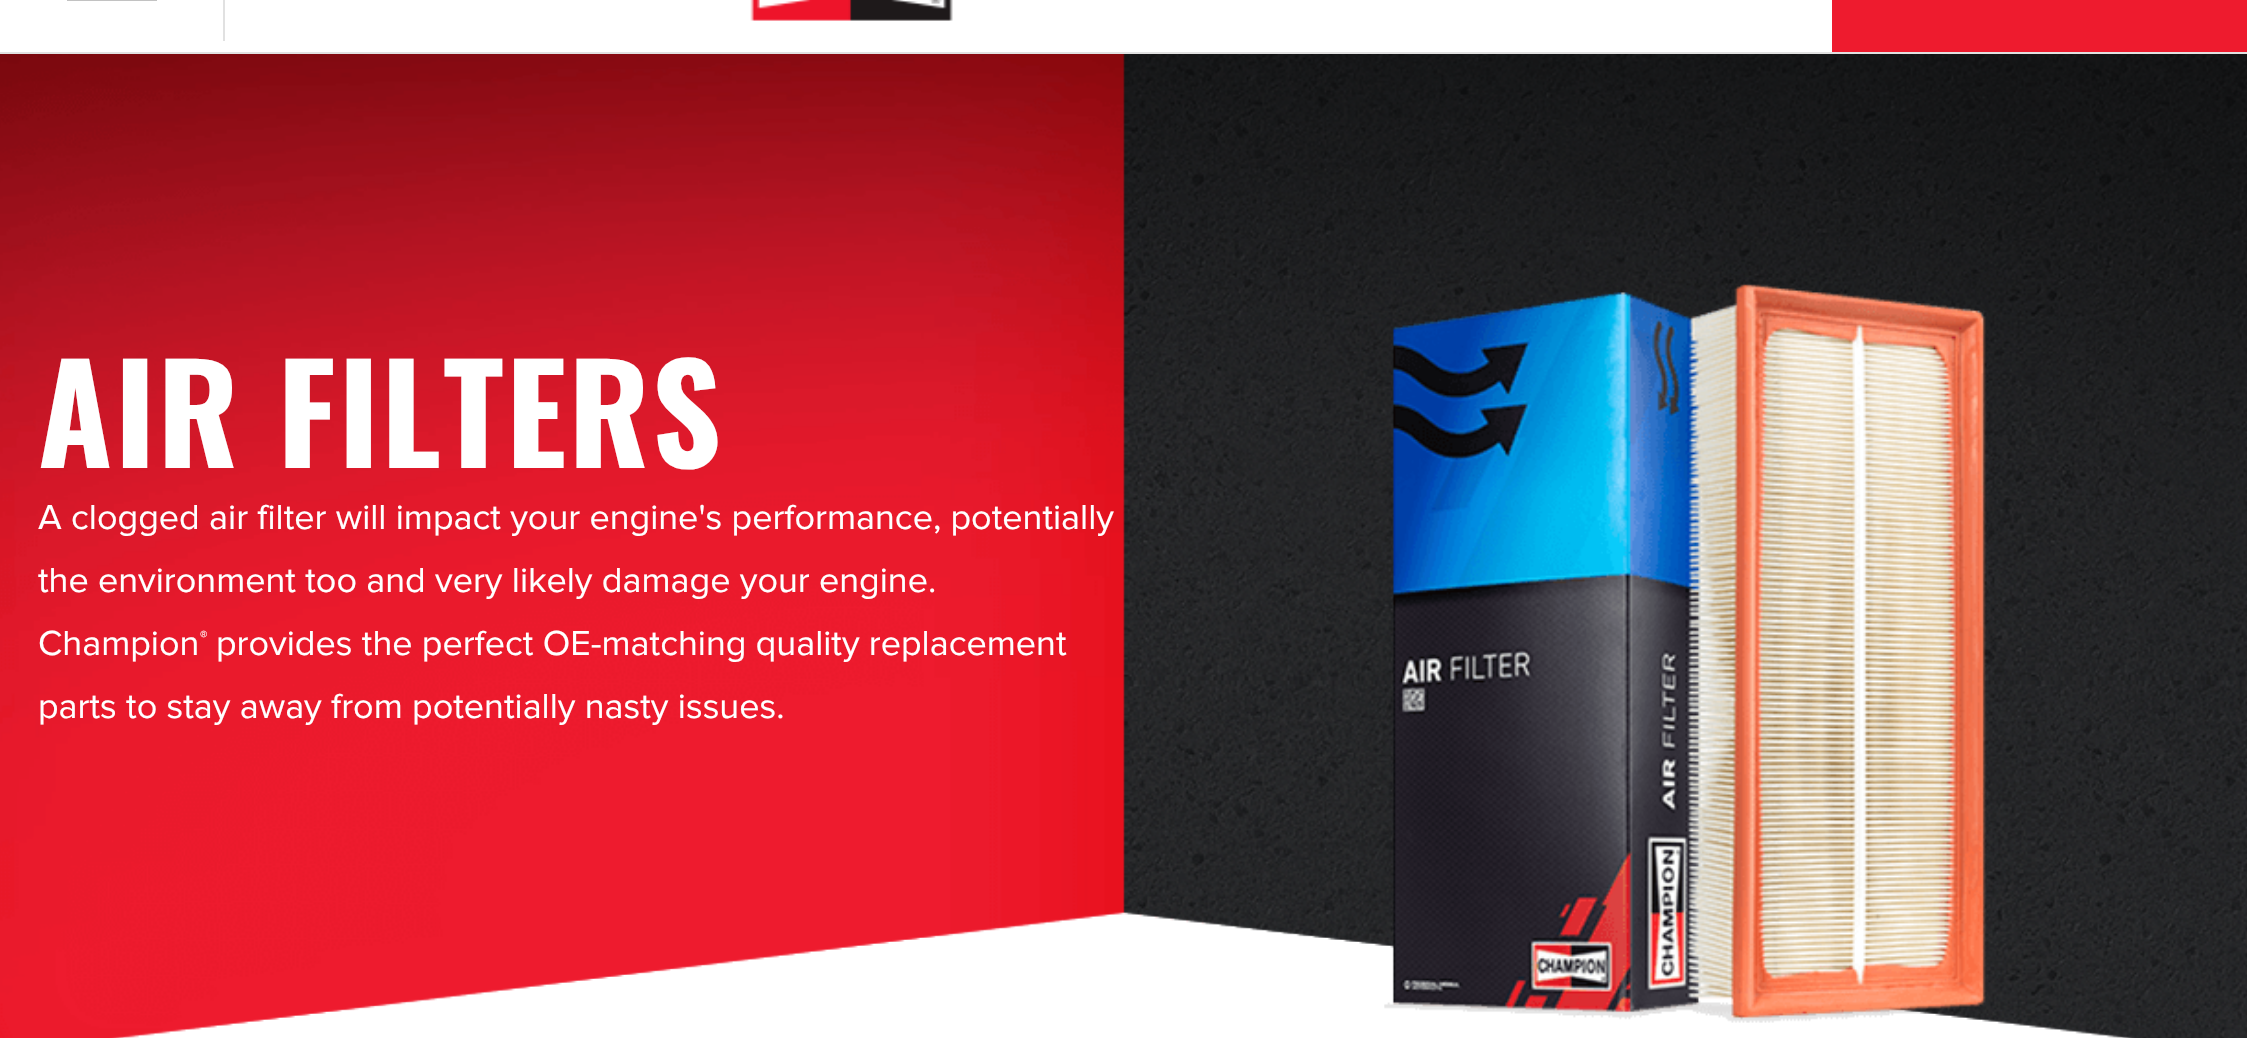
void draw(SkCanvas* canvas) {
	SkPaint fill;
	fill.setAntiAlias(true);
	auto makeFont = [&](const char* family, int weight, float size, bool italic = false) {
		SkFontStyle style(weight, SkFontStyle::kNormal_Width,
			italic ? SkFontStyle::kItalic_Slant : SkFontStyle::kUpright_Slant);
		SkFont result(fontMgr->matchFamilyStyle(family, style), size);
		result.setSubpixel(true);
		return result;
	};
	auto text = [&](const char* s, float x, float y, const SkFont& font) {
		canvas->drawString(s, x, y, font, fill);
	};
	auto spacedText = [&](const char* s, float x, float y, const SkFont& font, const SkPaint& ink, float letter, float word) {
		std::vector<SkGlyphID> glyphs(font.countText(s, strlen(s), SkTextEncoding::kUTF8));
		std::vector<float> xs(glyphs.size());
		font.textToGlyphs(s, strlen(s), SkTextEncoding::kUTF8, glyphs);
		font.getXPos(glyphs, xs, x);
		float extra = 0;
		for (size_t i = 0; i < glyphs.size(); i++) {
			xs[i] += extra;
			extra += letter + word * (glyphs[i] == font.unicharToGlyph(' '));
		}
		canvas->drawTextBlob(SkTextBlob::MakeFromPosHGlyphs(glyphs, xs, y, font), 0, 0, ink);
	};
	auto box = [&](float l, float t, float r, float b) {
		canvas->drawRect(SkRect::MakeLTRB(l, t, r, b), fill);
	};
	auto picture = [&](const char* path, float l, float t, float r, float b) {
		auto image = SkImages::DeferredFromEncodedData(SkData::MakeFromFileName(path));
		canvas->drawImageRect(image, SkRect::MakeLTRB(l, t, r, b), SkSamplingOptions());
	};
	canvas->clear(0xFFFFFFFF);
	fill.setColor(0xFFE1E1E1);
	box(0, 52, 2247, 54);
	box(223, 0, 225, 41);
	fill.setColor(0xFFC2C2C2);
	canvas->drawPath(SkPathBuilder().moveTo(67, -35).lineTo(157, -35).lineTo(157, -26).lineTo(67, -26).close().moveTo(67, -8).lineTo(157, -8).lineTo(157, 1).lineTo(67, 1).close().moveTo(67, -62).lineTo(157, -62).lineTo(157, -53).lineTo(67, -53).close().detach(), fill);
	picture("image0.png", 750, 0, 953, 21);
	fill.setColor(0xFFEE1B2E);
	box(1832, 0, 2247, 52);
	picture("image1.png", 109, 911, 2139, 1038);
	picture("image2.png", 0, 54, 2247, 1038);
	picture("image3.png", 1384, 284, 1986, 1023);
	auto font1 = makeFont("Oswald", 700, 135);
	fill.setColor(0xFFFFFFFF);
	spacedText("AIR FILTERS", 38, 468, font1, fill, 2.25f, 0);
	auto font2 = makeFont("Proxima Nova", 400, 36);
	text("A clogged air filter will impact your engine's performance, potentially", 38, 529, font2);
	text("the environment too and very likely damage your engine.", 38, 592, font2);
	text("Champion", 38, 655, font2);
	auto font3 = makeFont("Proxima Nova", 400, 15);
	text("®", 200, 641, font3);
	text("provides the perfect OE-matching quality replacement", 216, 655, font2);
	text("parts to stay away from potentially nasty issues.", 38, 718, font2);
}
